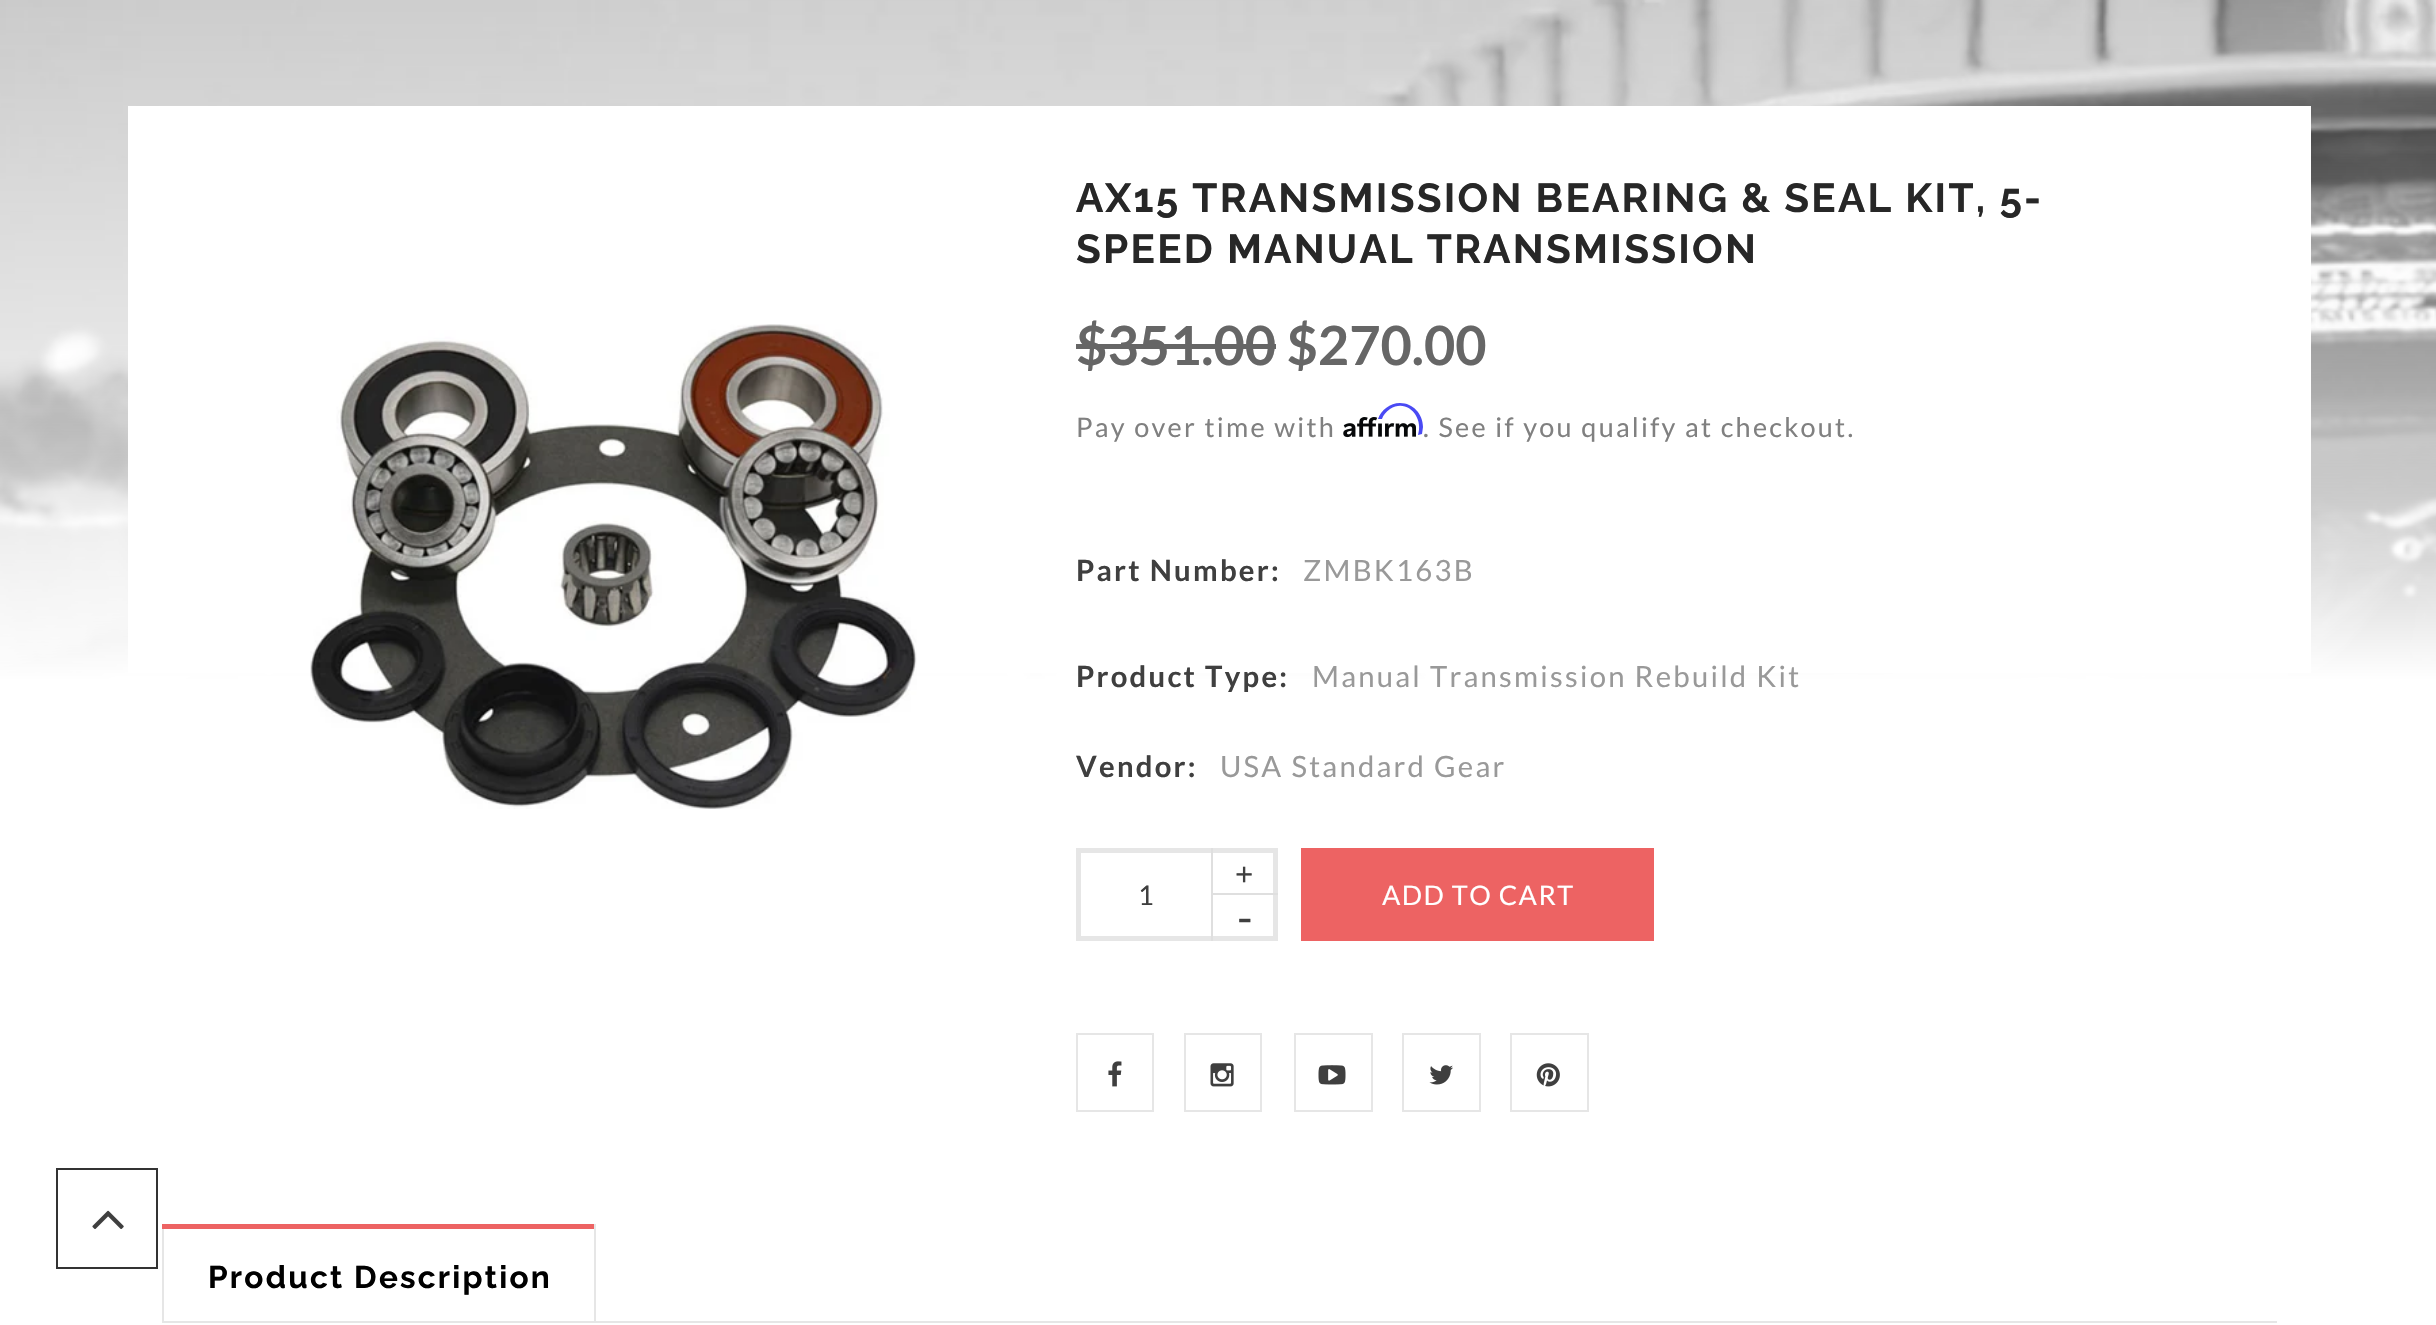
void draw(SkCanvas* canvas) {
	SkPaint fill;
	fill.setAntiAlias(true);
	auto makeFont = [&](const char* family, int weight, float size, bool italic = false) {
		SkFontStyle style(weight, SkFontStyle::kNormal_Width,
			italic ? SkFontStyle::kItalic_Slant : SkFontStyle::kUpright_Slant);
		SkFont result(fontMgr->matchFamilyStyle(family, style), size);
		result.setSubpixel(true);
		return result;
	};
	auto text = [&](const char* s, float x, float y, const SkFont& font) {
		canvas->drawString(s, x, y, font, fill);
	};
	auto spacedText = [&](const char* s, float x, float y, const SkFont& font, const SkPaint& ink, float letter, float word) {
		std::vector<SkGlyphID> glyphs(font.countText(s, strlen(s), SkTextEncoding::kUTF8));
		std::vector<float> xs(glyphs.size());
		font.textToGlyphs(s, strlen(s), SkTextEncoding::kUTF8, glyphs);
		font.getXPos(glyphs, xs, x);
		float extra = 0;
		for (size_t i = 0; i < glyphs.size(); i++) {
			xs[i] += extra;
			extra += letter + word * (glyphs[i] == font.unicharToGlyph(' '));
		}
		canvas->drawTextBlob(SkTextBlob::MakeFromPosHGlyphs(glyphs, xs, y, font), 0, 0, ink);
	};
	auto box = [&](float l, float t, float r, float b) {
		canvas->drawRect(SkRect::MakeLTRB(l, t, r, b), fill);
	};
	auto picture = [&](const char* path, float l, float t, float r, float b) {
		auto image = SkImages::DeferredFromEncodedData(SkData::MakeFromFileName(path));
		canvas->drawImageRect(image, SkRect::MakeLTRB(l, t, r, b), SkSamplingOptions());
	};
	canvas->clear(0xFFFFFFFF);
	picture("image0.png", 0, 0, 2436, 680);
	fill.setStyle(SkPaint::kStroke_Style);
	fill.setStrokeWidth(2);
	fill.setColor(0xFF333333);
	canvas->drawRect(SkRect::MakeLTRB(57, 1169, 157, 1268), fill);
	picture("image1.png", 92, 1210, 124, 1229);
	fill.setStyle(SkPaint::kFill_Style);
	fill.setColor(0xFFFFFFFF);
	box(128, 106, 2311, 673);
	picture("image2.png", 310, 324, 917, 809);
	fill.setColor(0xFF666666);
	box(1076, 344, 1276, 349);
	picture("image3.png", 1343, 417, 1416, 438);
	fill.setColor(0xFF4A4AF4);
	canvas->drawPath(SkPathBuilder().moveTo(1400, 403).cubicTo(1390, 403, 1381, 410, 1378, 419).lineTo(1382, 419).cubicTo(1383, 415, 1386, 412, 1390, 409).cubicTo(1407, 398, 1424, 417, 1418, 435).lineTo(1422, 434).lineTo(1423, 427).cubicTo(1423, 414, 1413, 403, 1400, 403).close().detach(), fill);
	fill.setStyle(SkPaint::kStroke_Style);
	fill.setStrokeWidth(5);
	fill.setColor(0xFFE6E6E6);
	canvas->drawRect(SkRect::MakeLTRB(1078.5f, 850.5f, 1275.5f, 938.5f), fill);
	fill.setStyle(SkPaint::kFill_Style);
	fill.setColor(0xFFDFDFDF);
	box(1211, 893, 1278, 895);
	box(1211, 848, 1213, 941);
	fill.setColor(0xFFED6363);
	box(1301, 848, 1654, 941);
	fill.setStyle(SkPaint::kStroke_Style);
	fill.setStrokeWidth(2);
	fill.setColor(0xFFE6E6E6);
	canvas->drawRect(SkRect::MakeLTRB(1077, 1034, 1153, 1111), fill);
	picture("image4.png", 1108, 1061, 1122, 1087);
	canvas->drawRect(SkRect::MakeLTRB(1185, 1034, 1261, 1111), fill);
	picture("image5.png", 1210, 1063, 1234, 1087);
	canvas->drawRect(SkRect::MakeLTRB(1295, 1034, 1372, 1111), fill);
	picture("image6.png", 1318, 1065, 1346, 1085);
	canvas->drawRect(SkRect::MakeLTRB(1403, 1034, 1480, 1111), fill);
	picture("image7.png", 1429, 1065, 1453, 1085);
	canvas->drawRect(SkRect::MakeLTRB(1511, 1034, 1588, 1111), fill);
	picture("image8.png", 1536, 1063, 1560, 1087);
	fill.setStyle(SkPaint::kFill_Style);
	box(594, 1224, 596, 1321);
	box(162, 1224, 164, 1321);
	fill.setColor(0xFFED6363);
	box(162, 1224, 594, 1229);
	fill.setColor(0xFFE6E6E6);
	box(162, 1321, 2277, 1323);
	auto font1 = makeFont("Noto Sans", 600, 40.5f);
	fill.setColor(0xFF272727);
	spacedText("A", 1076, 212, font1, fill, 2.25f, 0);
	auto font2 = makeFont("Raleway", 700, 40.5f);
	spacedText("X15 TRANSMISSION BEARING & SEAL KIT, 5-", 1105, 212, font2, fill, 2.25f, 0);
	spacedText("SPEED MANUAL TRANSMISSION", 1076, 263, font2, fill, 2.25f, 0);
	auto font3 = makeFont("Lato", 700, 54);
	fill.setColor(0xFF666666);
	text("$351.00 $270.00", 1076, 365, font3);
	auto font4 = makeFont("Lato", 400, 27);
	fill.setColor(0xFF808080);
	spacedText("Pay over time with", 1076, 437, font4, fill, 2.25f, 0);
	spacedText(". See if you qualify at checkout.", 1423, 437, font4, fill, 2.25f, 0);
	auto font5 = makeFont("Lato", 700, 29.25f);
	fill.setColor(0xFF3F3F3F);
	spacedText("Part Number:", 1076, 581, font5, fill, 2.25f, 0);
	auto font6 = makeFont("Lato", 400, 29.25f);
	fill.setColor(0xFF999999);
	spacedText("ZMBK163B", 1303, 581, font6, fill, 2.25f, 0);
	fill.setColor(0xFF3F3F3F);
	spacedText("Product Type:", 1076, 687, font5, fill, 2.25f, 0);
	fill.setColor(0xFF999999);
	spacedText("Manual Transmission Rebuild Kit", 1312, 687, font6, fill, 2.25f, 0);
	fill.setColor(0xFF3F3F3F);
	spacedText("Vendor:", 1076, 777, font5, fill, 2.25f, 0);
	fill.setColor(0xFF999999);
	spacedText("USA Standard Gear", 1220, 777, font6, fill, 2.25f, 0);
	auto font7 = makeFont("Lato", 400, 31.5f);
	fill.setColor(0xFF3F3F3F);
	spacedText("+", 1235, 885, font7, fill, 2.25f, 0);
	text("1", 1138, 905, font4);
	auto font8 = makeFont("Lato", 400, 45);
	spacedText("-", 1237, 934, font8, fill, 2.25f, 0);
	fill.setColor(0xFFFFFFFF);
	spacedText("ADD TO CART", 1382, 905, font4, fill, 1.4f, 0);
	auto font9 = makeFont("Raleway", 700, 31.5f);
	fill.setColor(0xFF000000);
	spacedText("Product Description", 208, 1288, font9, fill, 2.25f, 0);
}
